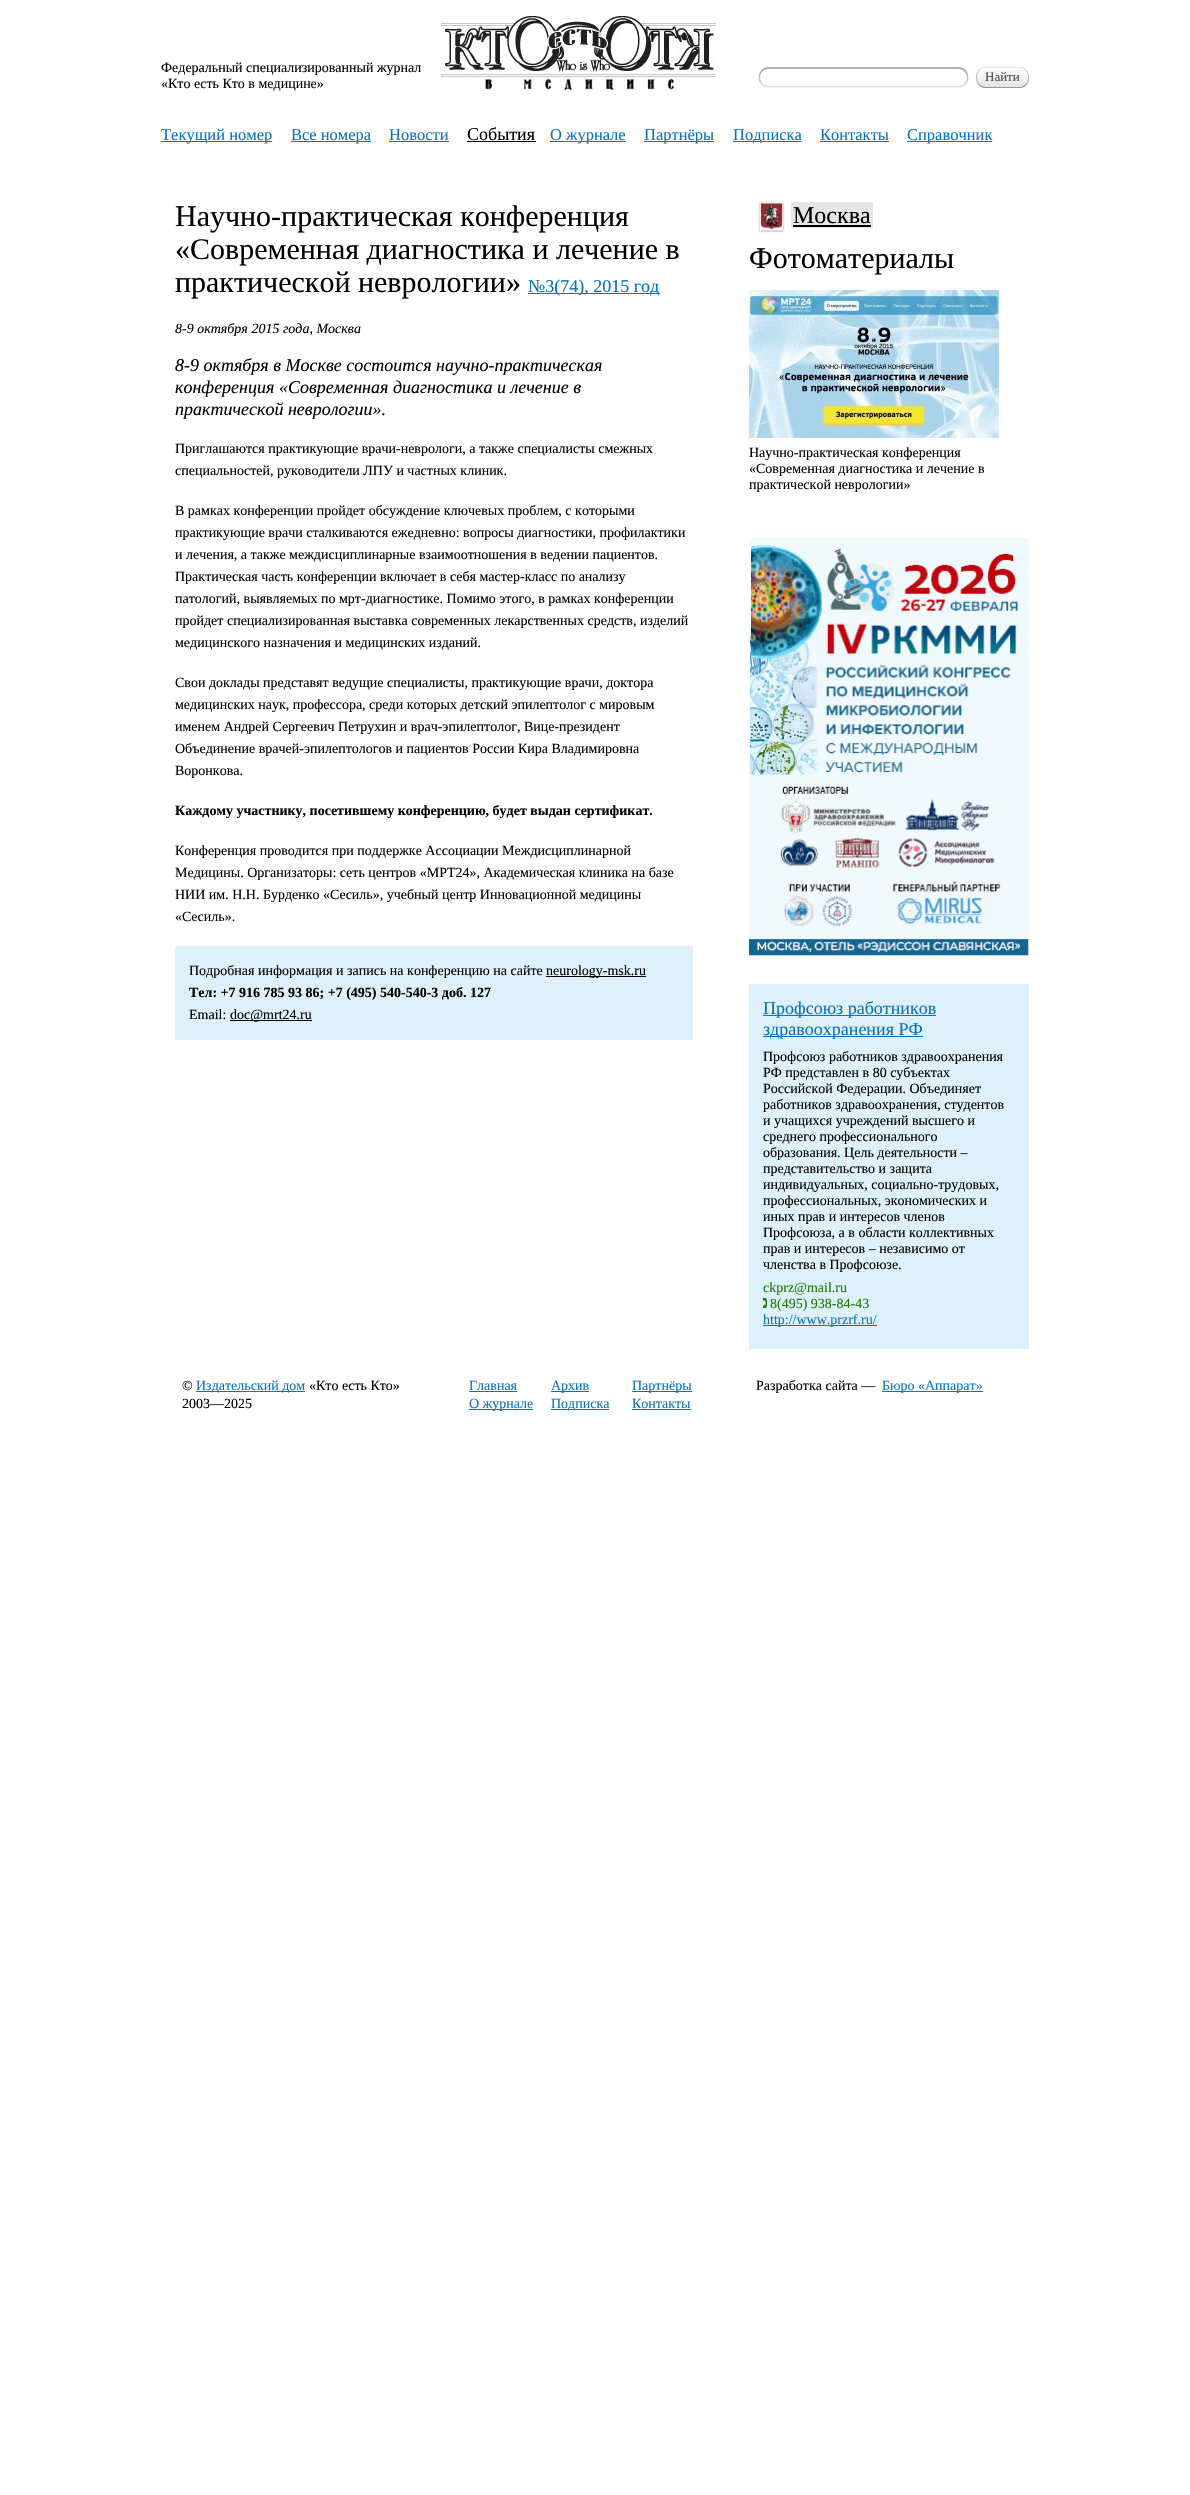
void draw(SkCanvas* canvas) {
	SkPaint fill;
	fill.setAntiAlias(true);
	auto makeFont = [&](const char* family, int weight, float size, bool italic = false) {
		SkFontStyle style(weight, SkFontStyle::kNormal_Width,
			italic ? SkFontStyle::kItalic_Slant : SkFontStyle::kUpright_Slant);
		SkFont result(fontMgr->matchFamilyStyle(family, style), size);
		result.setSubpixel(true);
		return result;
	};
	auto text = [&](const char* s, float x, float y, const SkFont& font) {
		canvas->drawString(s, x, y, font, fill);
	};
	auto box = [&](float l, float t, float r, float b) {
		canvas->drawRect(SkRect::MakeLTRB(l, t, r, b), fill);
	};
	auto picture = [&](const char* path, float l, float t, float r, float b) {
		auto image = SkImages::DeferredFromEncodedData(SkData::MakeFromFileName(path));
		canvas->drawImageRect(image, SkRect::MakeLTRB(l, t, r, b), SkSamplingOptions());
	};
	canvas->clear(0xFFFFFFFF);
	picture("image0.png", 441, 16, 716, 90);
	picture("image1.png", 767, 86, 959, 88);
	picture("image2.png", 758, 77, 767, 88);
	picture("image3.png", 758, 67, 768, 77);
	fill.setColor(0xFFB0B2B4);
	box(768, 67, 959, 69);
	picture("image4.png", 959, 77, 969, 88);
	picture("image5.png", 959, 67, 969, 77);
	picture("image6.png", 977, 70, 1028, 88);
	picture("image7.png", 976, 74, 984, 88);
	picture("image8.png", 976, 67, 985, 76);
	fill.setColor(0xFFE5E6E7);
	box(985, 67, 1020, 68);
	picture("image9.png", 1020, 74, 1029, 88);
	picture("image10.png", 1020, 67, 1029, 76);
	fill.setColor(0xFF0D72B9);
	box(161, 141, 272, 142);
	box(291, 141, 371, 142);
	box(389, 141, 449, 142);
	fill.setColor(0xFF000000);
	box(467, 141, 536, 142);
	fill.setColor(0xFF0D72B9);
	box(550, 141, 626, 142);
	box(644, 141, 714, 142);
	box(733, 141, 801, 142);
	box(820, 141, 889, 142);
	box(907, 141, 992, 142);
	fill.setColor(0xFF0071BC);
	box(528, 293, 660, 294);
	fill.setColor(0xFFDEF0F9);
	box(175, 946, 693, 1040);
	fill.setColor(0xFF000000);
	box(546, 976, 646, 977);
	box(230, 1020, 312, 1021);
	picture("image11.png", 749, 199, 785, 233);
	fill.setColor(0xFFE6E6E6);
	box(791, 202, 873, 228);
	fill.setColor(0xFF000000);
	box(793, 225, 871, 227);
	picture("image12.png", 749, 290, 999, 438);
	picture("image13.png", 749, 538, 1029, 956);
	fill.setColor(0xFFDEF0F9);
	box(749, 984, 1029, 1349);
	fill.setColor(0xFF0D72B9);
	box(763, 1015, 936, 1016);
	box(763, 1036, 923, 1037);
	picture("image14.png", 763, 1298, 767, 1308);
	box(763, 1325, 877, 1326);
	box(196, 1391, 305, 1392);
	box(469, 1391, 517, 1392);
	box(551, 1391, 589, 1392);
	box(632, 1391, 692, 1392);
	box(469, 1409, 533, 1410);
	box(551, 1409, 609, 1410);
	box(632, 1409, 691, 1410);
	box(882, 1391, 983, 1392);
	auto font1 = makeFont("Liberation Serif", 400, 14);
	fill.setColor(0xFF000000);
	text("Федеральный специализированный журнал", 161, 72, font1);
	text("«Кто есть Кто в медицине»", 161, 88, font1);
	auto font2 = makeFont("Liberation Serif", 400, 13);
	fill.setColor(0xFF4D4D4D);
	text("Найти", 985, 81, font2);
	auto font3 = makeFont("Liberation Serif", 400, 16.5f);
	fill.setColor(0xFF0D72B9);
	text("Текущий номер", 161, 140, font3);
	text("Все номера", 291, 140, font3);
	text("Новости", 389, 140, font3);
	auto font4 = makeFont("Liberation Serif", 400, 18);
	fill.setColor(0xFF000000);
	text("События", 467, 140, font4);
	fill.setColor(0xFF0D72B9);
	text("О журнале", 550, 140, font3);
	text("Партнёры", 644, 140, font3);
	text("Подписка", 733, 140, font3);
	text("Контакты", 820, 140, font3);
	text("Справочник", 907, 140, font3);
	auto font5 = makeFont("Liberation Serif", 400, 30);
	fill.setColor(0xFF000000);
	text("Научно-практическая конференция", 175, 226, font5);
	text("«Современная диагностика и лечение в", 175, 259, font5);
	text("практической неврологии»", 175, 292, font5);
	fill.setColor(0xFF0071BC);
	text("№3(74), 2015 год", 528, 292, font4);
	auto font6 = makeFont("Liberation Serif", 400, 14, true);
	fill.setColor(0xFF000000);
	text("8-9 октября 2015 года, Москва", 175, 333, font6);
	auto font7 = makeFont("Liberation Serif", 400, 18, true);
	text("8-9 октября в Москве состоится научно-практическая", 175, 371, font7);
	text("конференция «Современная диагностика и лечение в", 175, 393, font7);
	text("практической неврологии».", 175, 415, font7);
	text("Приглашаются практикующие врачи-неврологи, а также специалисты смежных", 175, 453, font1);
	text("специальностей, руководители ЛПУ и частных клиник.", 175, 475, font1);
	text("В рамках конференции пройдет обсуждение ключевых проблем, с которыми", 175, 515, font1);
	text("практикующие врачи сталкиваются ежедневно: вопросы диагностики, профилактики", 175, 537, font1);
	text("и лечения, а также междисциплинарные взаимоотношения в ведении пациентов.", 175, 559, font1);
	text("Практическая часть конференции включает в себя мастер-класс по анализу", 175, 581, font1);
	text("патологий, выявляемых по мрт-диагностике. Помимо этого, в рамках конференции", 175, 603, font1);
	text("пройдет специализированная выставка современных лекарственных средств, изделий", 175, 625, font1);
	text("медицинского назначения и медицинских изданий.", 175, 647, font1);
	text("Свои доклады представят ведущие специалисты, практикующие врачи, доктора", 175, 687, font1);
	text("медицинских наук, профессора, среди которых детский эпилептолог с мировым", 175, 709, font1);
	text("именем Андрей Сергеевич Петрухин и врач-эпилептолог, Вице-президент", 175, 731, font1);
	text("Объединение врачей-эпилептологов и пациентов России Кира Владимировна", 175, 753, font1);
	text("Воронкова.", 175, 775, font1);
	auto font8 = makeFont("Liberation Serif", 700, 14);
	text("Каждому участнику, посетившему конференцию, будет выдан сертификат.", 175, 815, font8);
	text("Конференция проводится при поддержке Ассоциации Междисциплинарной", 175, 855, font1);
	text("Медицины. Организаторы: сеть центров «МРТ24», Академическая клиника на базе", 175, 877, font1);
	text("НИИ им. Н.Н. Бурденко «Сесиль», учебный центр Инновационной медицины", 175, 899, font1);
	text("«Сесиль».", 175, 921, font1);
	text("Подробная информация и запись на конференцию на сайте", 189, 975, font1);
	text("neurology-msk.ru", 546, 975, font1);
	text("Тел: +7 916 785 93 86; +7 (495) 540-540-3 доб. 127", 189, 997, font8);
	text("Email:", 189, 1019, font1);
	text("doc@mrt24.ru", 230, 1019, font1);
	auto font9 = makeFont("Liberation Serif", 400, 24);
	text("Москва", 793, 223, font9);
	text("Фотоматериалы", 749, 268, font5);
	text("Научно-практическая конференция", 749, 457, font1);
	text("«Современная диагностика и лечение в", 749, 473, font1);
	text("практической неврологии»", 749, 489, font1);
	fill.setColor(0xFF0D72B9);
	text("Профсоюз работников", 763, 1014, font4);
	text("здравоохранения РФ", 763, 1035, font4);
	fill.setColor(0xFF000000);
	text("Профсоюз работников здравоохранения", 763, 1061, font1);
	text("РФ представлен в 80 субъектах", 763, 1077, font1);
	text("Российской Федерации. Объединяет", 763, 1093, font1);
	text("работников здравоохранения, студентов", 763, 1109, font1);
	text("и учащихся учреждений высшего и", 763, 1125, font1);
	text("среднего профессионального", 763, 1141, font1);
	text("образования. Цель деятельности –", 763, 1157, font1);
	text("представительство и защита", 763, 1173, font1);
	text("индивидуальных, социально-трудовых,", 763, 1189, font1);
	text("профессиональных, экономических и", 763, 1205, font1);
	text("иных прав и интересов членов", 763, 1221, font1);
	text("Профсоюза, а в области коллективных", 763, 1237, font1);
	text("прав и интересов – независимо от", 763, 1253, font1);
	text("членства в Профсоюзе.", 763, 1269, font1);
	fill.setColor(0xFF217701);
	text("ckprz@mail.ru", 763, 1292, font1);
	text("8(495) 938-84-43", 770, 1308, font1);
	fill.setColor(0xFF0D72B9);
	text("http://www.przrf.ru/", 763, 1324, font1);
	fill.setColor(0xFF000000);
	text("©", 182, 1390, font1);
	fill.setColor(0xFF0D72B9);
	text("Издательский дом", 196, 1390, font1);
	fill.setColor(0xFF000000);
	text("«Кто есть Кто»", 309, 1390, font1);
	text("2003—2025", 182, 1408, font1);
	fill.setColor(0xFF0D72B9);
	text("Главная", 469, 1390, font1);
	text("Архив", 551, 1390, font1);
	text("Партнёры", 632, 1390, font1);
	text("О журнале", 469, 1408, font1);
	text("Подписка", 551, 1408, font1);
	text("Контакты", 632, 1408, font1);
	fill.setColor(0xFF000000);
	text("Разработка сайта —", 756, 1390, font1);
	fill.setColor(0xFF0D72B9);
	text("Бюро «Аппарат»", 882, 1390, font1);
}
